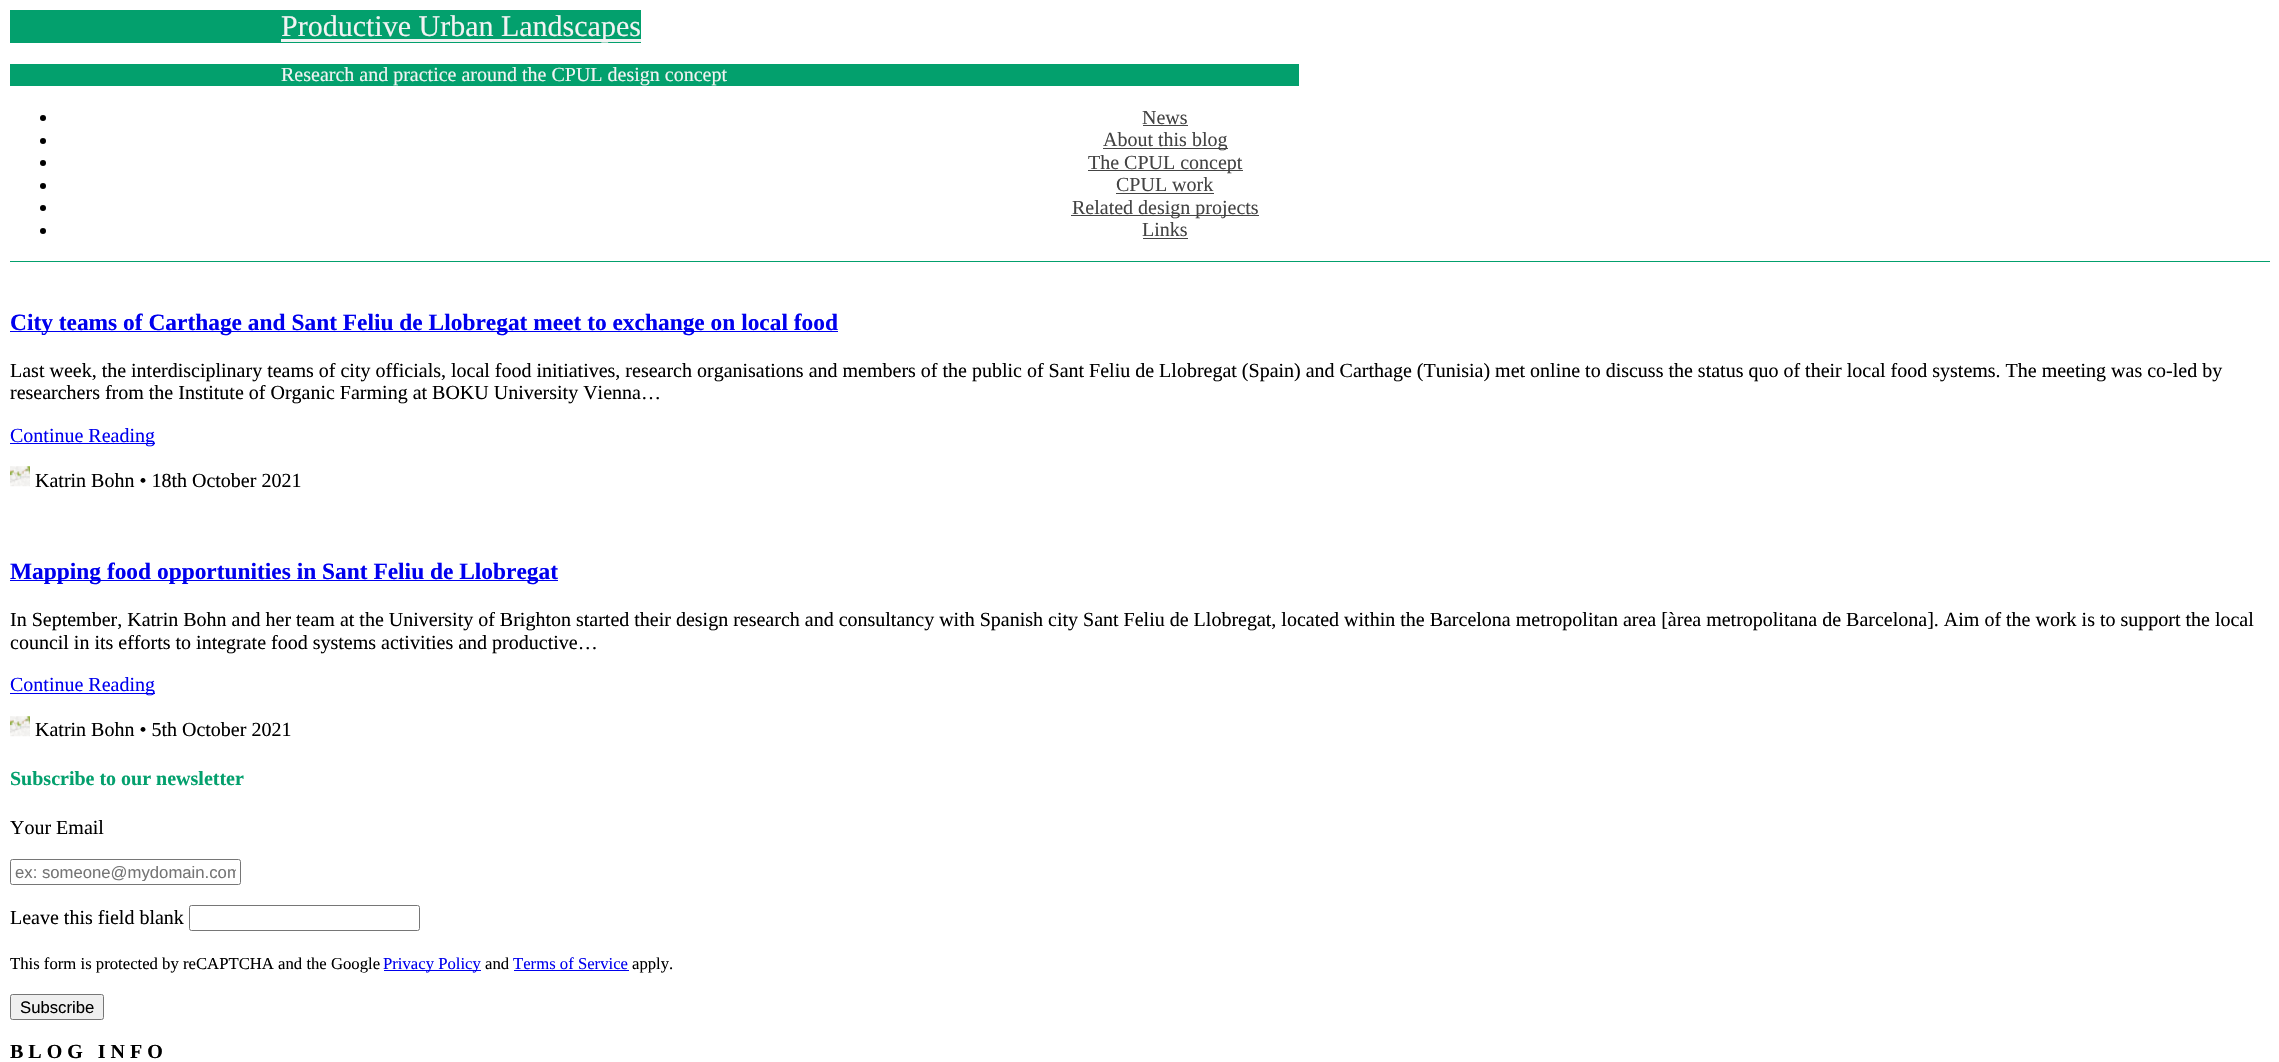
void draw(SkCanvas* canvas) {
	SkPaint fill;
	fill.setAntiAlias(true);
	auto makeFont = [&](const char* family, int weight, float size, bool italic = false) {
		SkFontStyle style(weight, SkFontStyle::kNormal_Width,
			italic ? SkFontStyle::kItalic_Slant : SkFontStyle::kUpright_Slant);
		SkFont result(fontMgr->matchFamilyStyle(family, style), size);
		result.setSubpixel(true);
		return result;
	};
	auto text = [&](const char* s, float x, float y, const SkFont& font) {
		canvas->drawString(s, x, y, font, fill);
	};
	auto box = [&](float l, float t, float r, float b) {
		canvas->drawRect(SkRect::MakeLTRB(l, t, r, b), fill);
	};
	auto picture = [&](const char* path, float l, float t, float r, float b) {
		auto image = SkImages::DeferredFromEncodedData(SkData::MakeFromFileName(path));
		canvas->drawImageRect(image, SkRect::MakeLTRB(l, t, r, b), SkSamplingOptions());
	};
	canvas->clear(0xFFFFFFFF);
	fill.setColor(0xFF03A06D);
	box(10, 10, 641, 43);
	fill.setColor(0xFFF3F3F3);
	box(281, 39, 641, 42);
	fill.setColor(0xFF03A06D);
	box(10, 64, 1299, 86);
	box(10, 261, 2270, 262);
	fill.setColor(0xFF000000);
	canvas->drawCircle(43, 118, 3, fill);
	fill.setColor(0xFF444444);
	box(1143, 125, 1188, 126);
	fill.setColor(0xFF000000);
	canvas->drawCircle(43, 141, 3, fill);
	fill.setColor(0xFF444444);
	box(1103, 148, 1228, 149);
	fill.setColor(0xFF000000);
	canvas->drawCircle(43, 163, 3, fill);
	fill.setColor(0xFF444444);
	box(1088, 170, 1243, 171);
	fill.setColor(0xFF000000);
	canvas->drawCircle(43, 186, 3, fill);
	fill.setColor(0xFF444444);
	box(1116, 193, 1214, 194);
	fill.setColor(0xFF000000);
	canvas->drawCircle(43, 208, 3, fill);
	fill.setColor(0xFF444444);
	box(1071, 215, 1259, 216);
	fill.setColor(0xFF000000);
	canvas->drawCircle(43, 231, 3, fill);
	fill.setColor(0xFF444444);
	box(1143, 238, 1188, 239);
	fill.setColor(0xFF0000EE);
	box(10, 331, 838, 332);
	box(10, 443, 155, 444);
	picture("image0.png", 10, 466, 30, 487);
	box(10, 580, 558, 581);
	box(10, 693, 155, 694);
	picture("image0.png", 10, 716, 30, 737);
	fill.setStyle(SkPaint::kStroke_Style);
	fill.setStrokeWidth(1);
	fill.setColor(0xFF767676);
	canvas->drawRoundRect(SkRect::MakeLTRB(10.5f, 859.5f, 240.5f, 884.5f), 2, 2, fill);
	canvas->drawRoundRect(SkRect::MakeLTRB(189.5f, 905.5f, 419.5f, 930.5f), 2, 2, fill);
	fill.setStyle(SkPaint::kFill_Style);
	fill.setColor(0xFF0000EE);
	box(384, 970, 481, 971);
	box(514, 970, 629, 971);
	fill.setColor(0xFFEFEFEF);
	canvas->drawRoundRect(SkRect::MakeLTRB(10.5f, 994.5f, 103.5f, 1019.5f), 2, 2, fill);
	fill.setStyle(SkPaint::kStroke_Style);
	fill.setColor(0xFF767676);
	canvas->drawRoundRect(SkRect::MakeLTRB(10.5f, 994.5f, 103.5f, 1019.5f), 2, 2, fill);
	auto font1 = makeFont("Liberation Serif", 400, 30);
	fill.setStyle(SkPaint::kFill_Style);
	fill.setColor(0xFFF3F3F3);
	text("Productive Urban Landscapes", 281, 36, font1);
	auto font2 = makeFont("Liberation Serif", 400, 20);
	text("Research and practice around the CPUL design concept", 281, 81, font2);
	fill.setColor(0xFF444444);
	text("News", 1142, 124, font2);
	text("About this blog", 1103, 146, font2);
	text("The CPUL concept", 1088, 169, font2);
	text("CPUL work", 1116, 191, font2);
	text("Related design projects", 1072, 214, font2);
	text("Links", 1142, 236, font2);
	auto font3 = makeFont("Liberation Serif", 700, 23.4f);
	fill.setColor(0xFF0000EE);
	text("City teams of Carthage and Sant Feliu de Llobregat meet to exchange on local food", 10, 330, font3);
	fill.setColor(0xFF000000);
	text("Last week, the interdisciplinary teams of city officials, local food initiatives, research organisations and members of the public of Sant Feliu de Llobregat (Spain) and Carthage (Tunisia) met online to discuss the status quo of their local food systems. The meeting was co-led by", 10, 377, font2);
	text("researchers from the Institute of Organic Farming at BOKU University Vienna…", 10, 399, font2);
	fill.setColor(0xFF0000EE);
	text("Continue Reading", 10, 442, font2);
	fill.setColor(0xFF000000);
	text("Katrin Bohn • 18th October 2021", 35, 487, font2);
	fill.setColor(0xFF0000EE);
	text("Mapping food opportunities in Sant Feliu de Llobregat", 10, 579, font3);
	fill.setColor(0xFF000000);
	text("In September, Katrin Bohn and her team at the University of Brighton started their design research and consultancy with Spanish city Sant Feliu de Llobregat, located within the Barcelona metropolitan area [àrea metropolitana de Barcelona]. Aim of the work is to support the local", 10, 626, font2);
	text("council in its efforts to integrate food systems activities and productive…", 10, 649, font2);
	fill.setColor(0xFF0000EE);
	text("Continue Reading", 10, 691, font2);
	fill.setColor(0xFF000000);
	text("Katrin Bohn • 5th October 2021", 35, 736, font2);
	auto font4 = makeFont("Liberation Serif", 700, 20);
	fill.setColor(0xFF03A06D);
	text("Subscribe to our newsletter", 10, 785, font4);
	fill.setColor(0xFF000000);
	text("Your Email", 10, 834, font2);
	canvas->save();
	canvas->clipRect(SkRect::MakeLTRB(15, 863, 236, 881));
	auto font5 = makeFont("Liberation Sans", 400, 16.7f);
	fill.setColor(0xFF757575);
	text("ex: someone@mydomain.com", 15, 878, font5);
	canvas->restore();
	fill.setColor(0xFF000000);
	text("Leave this field blank", 10, 924, font2);
	auto font6 = makeFont("Liberation Serif", 400, 16.7f);
	text("This form is protected by reCAPTCHA and the Google", 10, 969, font6);
	fill.setColor(0xFF0000EE);
	text("Privacy Policy", 383, 969, font6);
	fill.setColor(0xFF000000);
	text("and", 485, 969, font6);
	fill.setColor(0xFF0000EE);
	text("Terms of Service", 513, 969, font6);
	fill.setColor(0xFF000000);
	text("apply.", 632, 969, font6);
	text("Subscribe", 20, 1013, font5);
	text("B L O G   I N F O", 10, 1058, font4);
}
